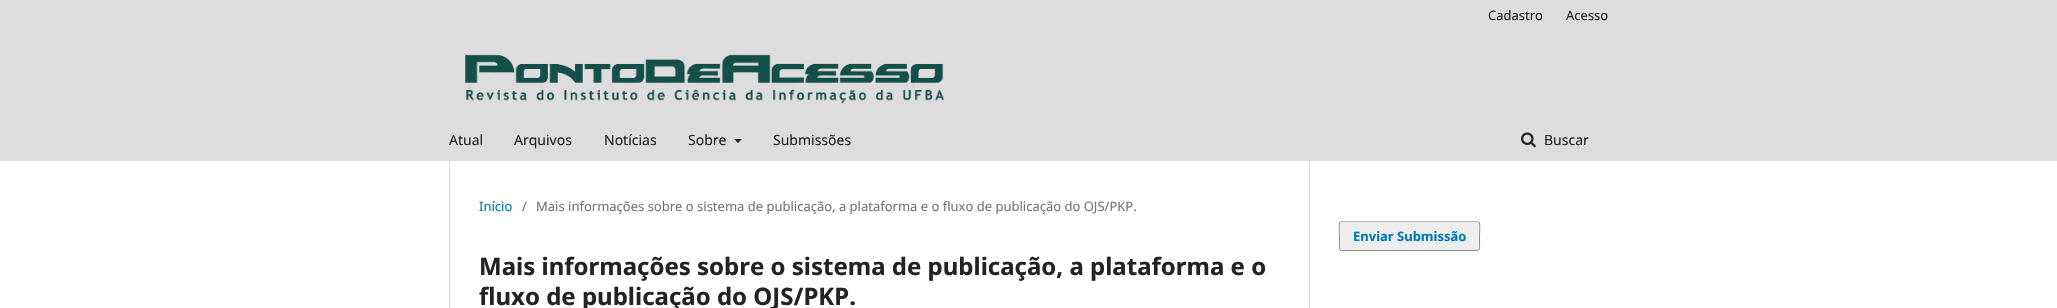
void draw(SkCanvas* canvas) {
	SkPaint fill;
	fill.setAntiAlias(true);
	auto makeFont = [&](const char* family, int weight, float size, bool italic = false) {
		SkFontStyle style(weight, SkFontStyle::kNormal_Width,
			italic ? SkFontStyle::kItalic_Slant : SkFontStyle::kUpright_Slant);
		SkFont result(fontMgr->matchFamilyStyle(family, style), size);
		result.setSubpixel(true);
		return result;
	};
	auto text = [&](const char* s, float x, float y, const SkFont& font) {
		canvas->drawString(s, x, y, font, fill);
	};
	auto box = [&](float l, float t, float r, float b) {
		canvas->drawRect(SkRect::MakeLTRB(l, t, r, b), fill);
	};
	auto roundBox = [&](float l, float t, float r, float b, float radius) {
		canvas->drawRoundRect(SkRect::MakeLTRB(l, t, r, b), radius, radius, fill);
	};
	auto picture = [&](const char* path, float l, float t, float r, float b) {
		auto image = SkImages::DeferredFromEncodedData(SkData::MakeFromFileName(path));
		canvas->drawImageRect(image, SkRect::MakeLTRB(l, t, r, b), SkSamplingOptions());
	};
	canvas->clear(0xFFFFFFFF);
	fill.setColor(0xFFDDDDDD);
	box(0, 0, 2057, 161);
	fill.setColor(0xFF232323);
	canvas->drawPath(SkPathBuilder().moveTo(734, 139).lineTo(742, 139).lineTo(738, 143).close().detach(), fill);
	picture("image0.png", 1521, 132, 1536, 148);
	picture("image1.png", 465, 54, 944, 103);
	fill.setColor(0xFFDDDDDD);
	box(449, 161, 450, 308);
	box(1309, 161, 1310, 308);
	fill.setColor(0xFFEEEEEE);
	roundBox(1339, 221, 1480, 251, 3);
	fill.setStyle(SkPaint::kStroke_Style);
	fill.setStrokeWidth(1);
	fill.setColor(0xFFBBBBBB);
	canvas->drawPath(SkPathBuilder().moveTo(1340, 222).lineTo(1342, 221.5f).lineTo(1477, 221.5f).lineTo(1479, 222).detach(), fill);
	fill.setColor(0x66000000);
	canvas->drawPath(SkPathBuilder().moveTo(1479, 222).cubicTo(1480.5f, 224, 1479.5f, 233.5f, 1479.5f, 236).lineTo(1479.5f, 244).cubicTo(1479.5f, 246, 1480.5f, 250.5f, 1477, 250.5f).lineTo(1342, 250.5f).cubicTo(1338.5f, 250.5f, 1339.5f, 246, 1339.5f, 244).lineTo(1339.5f, 236).cubicTo(1339.5f, 233.5f, 1338.5f, 224, 1340, 222).detach(), fill);
	auto font1 = makeFont("Noto Sans", 400, 13);
	fill.setStyle(SkPaint::kFill_Style);
	fill.setColor(0xFF232323);
	text("Cadastro", 1488, 20, font1);
	text("Acesso", 1566, 20, font1);
	auto font2 = makeFont("Noto Sans", 400, 14);
	text("Atual", 449, 145, font2);
	text("Arquivos", 514, 145, font2);
	text("Notícias", 604, 145, font2);
	text("Sobre", 688, 145, font2);
	text("Submissões", 773, 145, font2);
	text("Buscar", 1544, 145, font2);
	fill.setColor(0xFF007AB2);
	text("Início", 479, 211, font1);
	fill.setColor(0xFF757575);
	text("/", 522, 211, font1);
	text("Mais informações sobre o sistema de publicação, a plataforma e o fluxo de publicação do OJS/PKP.", 536, 211, font1);
	auto font3 = makeFont("Noto Sans", 700, 24);
	fill.setColor(0xFF232323);
	text("Mais informações sobre o sistema de publicação, a plataforma e o", 479, 275, font3);
	text("fluxo de publicação do OJS/PKP.", 479, 305, font3);
	auto font4 = makeFont("Noto Sans", 700, 13);
	fill.setColor(0xFF007AB2);
	text("Enviar Submissão", 1353, 241, font4);
}
